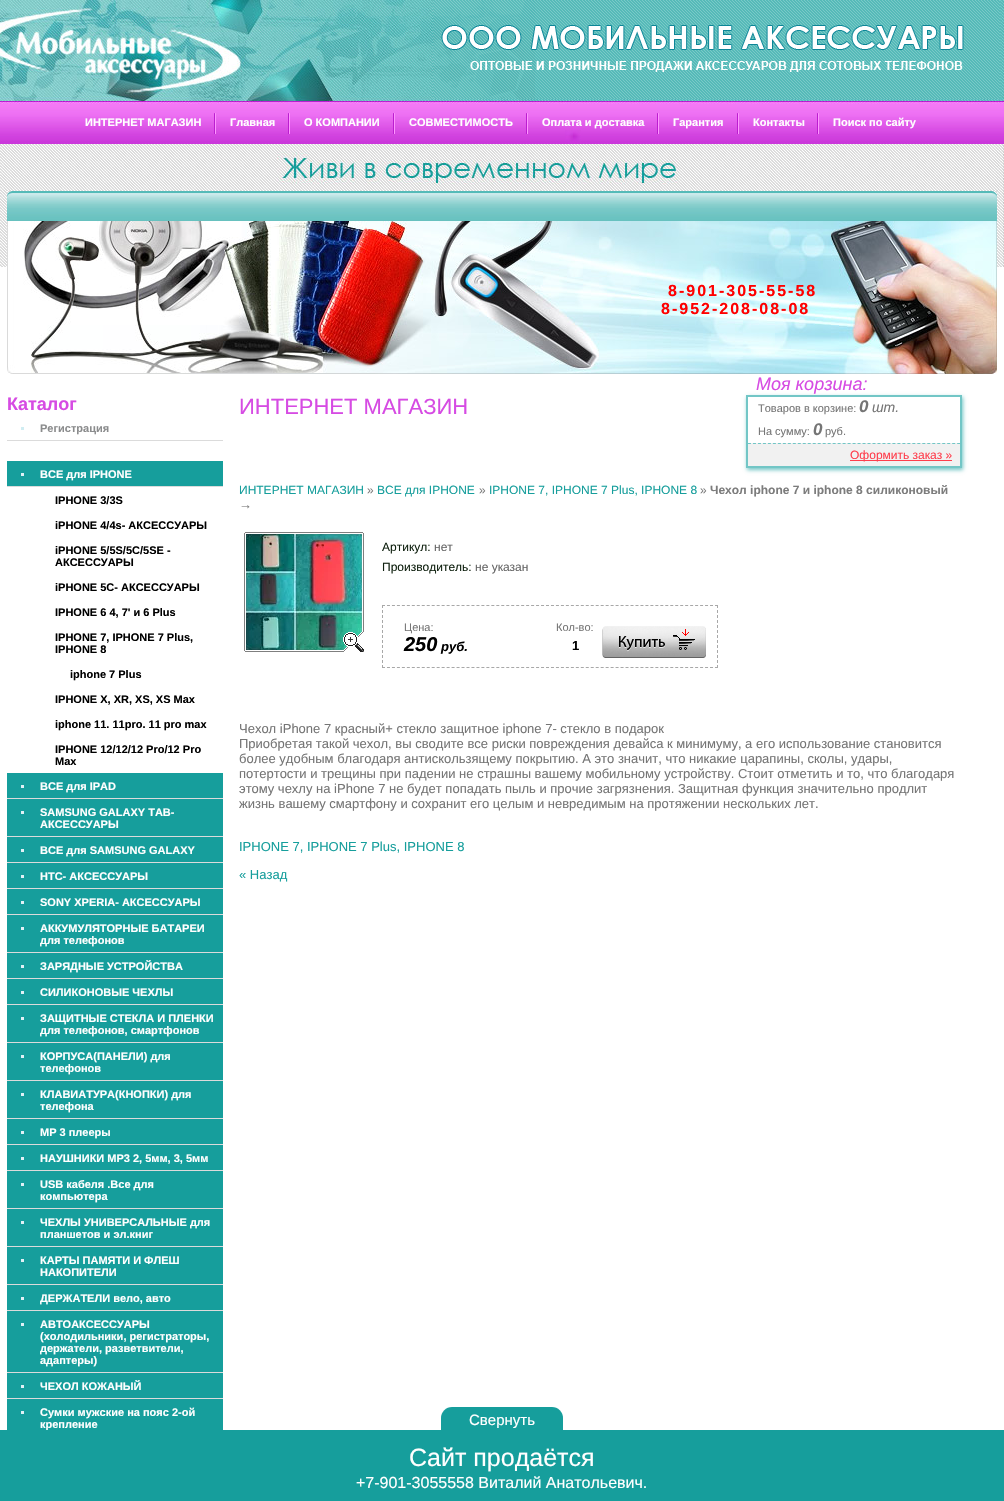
void draw(SkCanvas* canvas) {
	SkPaint fill;
	fill.setAntiAlias(true);
	auto makeFont = [&](const char* family, int weight, float size, bool italic = false) {
		SkFontStyle style(weight, SkFontStyle::kNormal_Width,
			italic ? SkFontStyle::kItalic_Slant : SkFontStyle::kUpright_Slant);
		SkFont result(fontMgr->matchFamilyStyle(family, style), size);
		result.setSubpixel(true);
		return result;
	};
	auto text = [&](const char* s, float x, float y, const SkFont& font) {
		canvas->drawString(s, x, y, font, fill);
	};
	auto spacedText = [&](const char* s, float x, float y, const SkFont& font, const SkPaint& ink, float letter, float word) {
		std::vector<SkGlyphID> glyphs(font.countText(s, strlen(s), SkTextEncoding::kUTF8));
		std::vector<float> xs(glyphs.size());
		font.textToGlyphs(s, strlen(s), SkTextEncoding::kUTF8, glyphs);
		font.getXPos(glyphs, xs, x);
		float extra = 0;
		for (size_t i = 0; i < glyphs.size(); i++) {
			xs[i] += extra;
			extra += letter + word * (glyphs[i] == font.unicharToGlyph(' '));
		}
		canvas->drawTextBlob(SkTextBlob::MakeFromPosHGlyphs(glyphs, xs, y, font), 0, 0, ink);
	};
	auto box = [&](float l, float t, float r, float b) {
		canvas->drawRect(SkRect::MakeLTRB(l, t, r, b), fill);
	};
	auto roundBox = [&](float l, float t, float r, float b, float radius) {
		canvas->drawRoundRect(SkRect::MakeLTRB(l, t, r, b), radius, radius, fill);
	};
	auto picture = [&](const char* path, float l, float t, float r, float b) {
		auto image = SkImages::DeferredFromEncodedData(SkData::MakeFromFileName(path));
		canvas->drawImageRect(image, SkRect::MakeLTRB(l, t, r, b), SkSamplingOptions());
	};
	canvas->clear(0xFFFFFFFF);
	picture("image0.png", 0, 0, 1004, 267);
	picture("image1.png", 433, 0, 1000, 99);
	picture("image2.png", 214, 101, 217, 134);
	picture("image3.png", 288, 102, 291, 134);
	picture("image2.png", 393, 101, 396, 134);
	picture("image2.png", 526, 101, 529, 134);
	picture("image2.png", 657, 101, 660, 134);
	picture("image3.png", 737, 102, 740, 134);
	picture("image4.png", 817, 101, 819, 134);
	picture("image5.png", 7, 191, 997, 221);
	picture("image6.png", 7, 221, 997, 374);
	fill.setColor(0xFFDBDBDB);
	box(7, 440, 223, 441);
	fill.setColor(0xFFD0EDF2);
	box(21, 427, 24, 430);
	fill.setColor(0xFFDBDBDB);
	box(7, 486, 223, 487);
	fill.setColor(0xFF169E9C);
	box(7, 461, 223, 486);
	fill.setColor(0xFFE1F1F6);
	box(21, 473, 24, 476);
	fill.setColor(0xFFDBDBDB);
	box(7, 798, 223, 799);
	fill.setColor(0xFF169E9C);
	box(7, 773, 223, 798);
	fill.setColor(0xFFE1F1F6);
	box(21, 785, 24, 788);
	fill.setColor(0xFFDBDBDB);
	box(7, 836, 223, 837);
	fill.setColor(0xFF169E9C);
	box(7, 799, 223, 836);
	fill.setColor(0xFFE1F1F6);
	box(21, 811, 24, 814);
	fill.setColor(0xFFDBDBDB);
	box(7, 862, 223, 863);
	fill.setColor(0xFF169E9C);
	box(7, 837, 223, 862);
	fill.setColor(0xFFE1F1F6);
	box(21, 849, 24, 852);
	fill.setColor(0xFFDBDBDB);
	box(7, 888, 223, 889);
	fill.setColor(0xFF169E9C);
	box(7, 863, 223, 888);
	fill.setColor(0xFFE1F1F6);
	box(21, 875, 24, 878);
	fill.setColor(0xFFDBDBDB);
	box(7, 914, 223, 915);
	fill.setColor(0xFF169E9C);
	box(7, 889, 223, 914);
	fill.setColor(0xFFE1F1F6);
	box(21, 901, 24, 904);
	fill.setColor(0xFFDBDBDB);
	box(7, 952, 223, 953);
	fill.setColor(0xFF169E9C);
	box(7, 915, 223, 952);
	fill.setColor(0xFFE1F1F6);
	box(21, 927, 24, 930);
	fill.setColor(0xFFDBDBDB);
	box(7, 978, 223, 979);
	fill.setColor(0xFF169E9C);
	box(7, 953, 223, 978);
	fill.setColor(0xFFE1F1F6);
	box(21, 965, 24, 968);
	fill.setColor(0xFFDBDBDB);
	box(7, 1004, 223, 1005);
	fill.setColor(0xFF169E9C);
	box(7, 979, 223, 1004);
	fill.setColor(0xFFE1F1F6);
	box(21, 991, 24, 994);
	fill.setColor(0xFFDBDBDB);
	box(7, 1042, 223, 1043);
	fill.setColor(0xFF169E9C);
	box(7, 1005, 223, 1042);
	fill.setColor(0xFFE1F1F6);
	box(21, 1017, 24, 1020);
	fill.setColor(0xFFDBDBDB);
	box(7, 1080, 223, 1081);
	fill.setColor(0xFF169E9C);
	box(7, 1043, 223, 1080);
	fill.setColor(0xFFE1F1F6);
	box(21, 1055, 24, 1058);
	fill.setColor(0xFFDBDBDB);
	box(7, 1118, 223, 1119);
	fill.setColor(0xFF169E9C);
	box(7, 1081, 223, 1118);
	fill.setColor(0xFFE1F1F6);
	box(21, 1093, 24, 1096);
	fill.setColor(0xFFDBDBDB);
	box(7, 1144, 223, 1145);
	fill.setColor(0xFF169E9C);
	box(7, 1119, 223, 1144);
	fill.setColor(0xFFE1F1F6);
	box(21, 1131, 24, 1134);
	fill.setColor(0xFFDBDBDB);
	box(7, 1170, 223, 1171);
	fill.setColor(0xFF169E9C);
	box(7, 1145, 223, 1170);
	fill.setColor(0xFFE1F1F6);
	box(21, 1157, 24, 1160);
	fill.setColor(0xFFDBDBDB);
	box(7, 1208, 223, 1209);
	fill.setColor(0xFF169E9C);
	box(7, 1171, 223, 1208);
	fill.setColor(0xFFE1F1F6);
	box(21, 1183, 24, 1186);
	fill.setColor(0xFFDBDBDB);
	box(7, 1246, 223, 1247);
	fill.setColor(0xFF169E9C);
	box(7, 1209, 223, 1246);
	fill.setColor(0xFFE1F1F6);
	box(21, 1221, 24, 1224);
	fill.setColor(0xFFDBDBDB);
	box(7, 1284, 223, 1285);
	fill.setColor(0xFF169E9C);
	box(7, 1247, 223, 1284);
	fill.setColor(0xFFE1F1F6);
	box(21, 1259, 24, 1262);
	fill.setColor(0xFFDBDBDB);
	box(7, 1310, 223, 1311);
	fill.setColor(0xFF169E9C);
	box(7, 1285, 223, 1310);
	fill.setColor(0xFFE1F1F6);
	box(21, 1297, 24, 1300);
	fill.setColor(0xFFDBDBDB);
	box(7, 1372, 223, 1373);
	fill.setColor(0xFF169E9C);
	box(7, 1311, 223, 1372);
	fill.setColor(0xFFE1F1F6);
	box(21, 1323, 24, 1326);
	fill.setColor(0xFFDBDBDB);
	box(7, 1398, 223, 1399);
	fill.setColor(0xFF169E9C);
	box(7, 1373, 223, 1398);
	fill.setColor(0xFFE1F1F6);
	box(21, 1385, 24, 1388);
	fill.setColor(0xFF169E9C);
	box(7, 1399, 223, 1430);
	fill.setColor(0xFFE1F1F6);
	box(21, 1411, 24, 1414);
	canvas->save();
	canvas->clipPath(SkPathBuilder(SkPathFillType::kEvenOdd).moveTo(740, 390).lineTo(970, 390).lineTo(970, 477).lineTo(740, 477).close().moveTo(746, 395).lineTo(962, 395).lineTo(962, 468).lineTo(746, 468).close().detach(), true);
	fill.setColor(0xFF72C6C6);
	fill.setMaskFilter(SkMaskFilter::MakeBlur(kNormal_SkBlurStyle, 2));
	canvas->drawRect(SkRect::MakeLTRB(747, 397, 963, 470), fill);
	fill.setMaskFilter(nullptr);
	canvas->restore();
	fill.setStyle(SkPaint::kStroke_Style);
	fill.setStrokeWidth(2);
	canvas->drawRect(SkRect::MakeLTRB(747, 396, 961, 467), fill);
	fill.setStyle(SkPaint::kFill_Style);
	fill.setColor(0xFFF1F1F1);
	box(748, 443, 960, 466);
	fill.setStyle(SkPaint::kStroke_Style);
	fill.setStrokeWidth(1);
	fill.setColor(0xFF72C6C6);
	fill.setPathEffect(SkDashPathEffect::Make({{3, 1.98f}}, 0));
	canvas->drawPath(SkPathBuilder().moveTo(748, 443.5f).lineTo(960, 443.5f).detach(), fill);
	fill.setPathEffect(nullptr);
	fill.setStyle(SkPaint::kFill_Style);
	fill.setColor(0xFFFF3E4D);
	box(850, 460, 952, 461);
	picture("image7.png", 244, 532, 364, 652);
	fill.setStyle(SkPaint::kStroke_Style);
	fill.setColor(0xFFA8A8A8);
	fill.setPathEffect(SkDashPathEffect::Make({{3, 1.97f}}, 0));
	canvas->drawPath(SkPathBuilder().moveTo(382, 605.5f).lineTo(718, 605.5f).detach(), fill);
	fill.setPathEffect(nullptr);
	fill.setPathEffect(SkDashPathEffect::Make({{3, 2}}, 0));
	canvas->drawPath(SkPathBuilder().moveTo(717.5f, 605).lineTo(717.5f, 668).detach(), fill);
	fill.setPathEffect(nullptr);
	fill.setPathEffect(SkDashPathEffect::Make({{3, 1.97f}}, 0));
	canvas->drawPath(SkPathBuilder().moveTo(382, 667.5f).lineTo(718, 667.5f).detach(), fill);
	fill.setPathEffect(nullptr);
	fill.setPathEffect(SkDashPathEffect::Make({{3, 2}}, 0));
	canvas->drawPath(SkPathBuilder().moveTo(382.5f, 605).lineTo(382.5f, 668).detach(), fill);
	fill.setPathEffect(nullptr);
	picture("image8.png", 602, 626, 706, 658);
	auto font1 = makeFont("Liberation Sans", 700, 11);
	fill.setStyle(SkPaint::kFill_Style);
	fill.setColor(0xFFFFFFFF);
	text("ИНТЕРНЕТ МАГАЗИН", 85, 126, font1);
	text("Главная", 230, 126, font1);
	text("О КОМПАНИИ", 304, 126, font1);
	text("СОВМЕСТИМОСТЬ", 409, 126, font1);
	text("Оплата и доставка", 542, 126, font1);
	text("Гарантия", 673, 126, font1);
	text("Контакты", 753, 126, font1);
	text("Поиск по сайту", 833, 126, font1);
	auto font2 = makeFont("Liberation Sans", 700, 16);
	fill.setColor(0xFFFF0000);
	spacedText("8-901-305-55-58", 668, 296, font2, fill, 2, 0);
	spacedText("8-952-208-08-08", 661, 314, font2, fill, 2, 0);
	auto font3 = makeFont("Liberation Sans", 700, 18);
	fill.setColor(0xFFD64BE3);
	text("Каталог", 7, 410, font3);
	fill.setColor(0xFF8B8C8D);
	text("Регистрация", 40, 432, font1);
	fill.setColor(0xFFFFFFFF);
	text("ВСЕ для IPHONE", 40, 478, font1);
	fill.setColor(0xFF000000);
	text("IPHONE 3/3S", 55, 504, font1);
	text("iPHONE 4/4s- АКСЕССУАРЫ", 55, 529, font1);
	text("iPHONE 5/5S/5C/5SE -", 55, 554, font1);
	text("АКСЕССУАРЫ", 55, 566, font1);
	text("iPHONE 5C- АКСЕССУАРЫ", 55, 591, font1);
	text("IPHONE 6 4, 7' и 6 Plus", 55, 616, font1);
	text("IPHONE 7, IPHONE 7 Plus,", 55, 641, font1);
	text("IPHONE 8", 55, 653, font1);
	text("iphone 7 Plus", 70, 678, font1);
	text("IPHONE X, XR, XS, XS Max", 55, 703, font1);
	text("iphone 11. 11pro. 11 pro max", 55, 728, font1);
	text("IPHONE 12/12/12 Pro/12 Pro", 55, 753, font1);
	text("Max", 55, 765, font1);
	fill.setColor(0xFFFFFFFF);
	text("ВСЕ для IPAD", 40, 790, font1);
	text("SAMSUNG GALAXY TAB-", 40, 816, font1);
	text("АКСЕССУАРЫ", 40, 828, font1);
	text("ВСЕ для SAMSUNG GALAXY", 40, 854, font1);
	text("HTC- АКСЕССУАРЫ", 40, 880, font1);
	text("SONY XPERIA- АКСЕССУАРЫ", 40, 906, font1);
	text("АККУМУЛЯТОРНЫЕ БАТАРЕИ", 40, 932, font1);
	text("для телефонов", 40, 944, font1);
	text("ЗАРЯДНЫЕ УСТРОЙСТВА", 40, 970, font1);
	text("СИЛИКОНОВЫЕ ЧЕХЛЫ", 40, 996, font1);
	text("ЗАЩИТНЫЕ СТЕКЛА И ПЛЕНКИ", 40, 1022, font1);
	text("для телефонов, смартфонов", 40, 1034, font1);
	text("КОРПУСА(ПАНЕЛИ) для", 40, 1060, font1);
	text("телефонов", 40, 1072, font1);
	text("КЛАВИАТУРА(КНОПКИ) для", 40, 1098, font1);
	text("телефона", 40, 1110, font1);
	text("МР 3 плееры", 40, 1136, font1);
	text("НАУШНИКИ МР3 2, 5мм, 3, 5мм", 40, 1162, font1);
	text("USB кабеля .Все для", 40, 1188, font1);
	text("компьютера", 40, 1200, font1);
	text("ЧЕХЛЫ УНИВЕРСАЛЬНЫЕ для", 40, 1226, font1);
	text("планшетов и эл.книг", 40, 1238, font1);
	text("КАРТЫ ПАМЯТИ И ФЛЕШ", 40, 1264, font1);
	text("НАКОПИТЕЛИ", 40, 1276, font1);
	text("ДЕРЖАТЕЛИ вело, авто", 40, 1302, font1);
	text("АВТОАКСЕССУАРЫ", 40, 1328, font1);
	text("(холодильники, регистраторы,", 40, 1340, font1);
	text("держатели, разветвители,", 40, 1352, font1);
	text("адаптеры)", 40, 1364, font1);
	text("ЧЕХОЛ КОЖАНЫЙ", 40, 1390, font1);
	text("Сумки мужские на пояс 2-ой", 40, 1416, font1);
	text("крепление", 40, 1428, font1);
	auto font4 = makeFont("Liberation Sans", 400, 22);
	fill.setColor(0xFFD64BE3);
	text("ИНТЕРНЕТ МАГАЗИН", 239, 414, font4);
	auto font5 = makeFont("Liberation Sans", 400, 18, true);
	text("Моя корзина:", 756, 390, font5);
	auto font6 = makeFont("Liberation Sans", 400, 11);
	fill.setColor(0xFF757575);
	text("Товаров в корзине:", 758, 412, font6);
	auto font7 = makeFont("Liberation Sans", 700, 17, true);
	text("0", 859, 412, font7);
	auto font8 = makeFont("Liberation Sans", 400, 14, true);
	text("шт.", 872, 412, font8);
	text("На сумму:", 758, 435, font6);
	text("0", 813, 435, font7);
	text("руб.", 825, 435, font6);
	auto font9 = makeFont("Liberation Sans", 400, 12);
	fill.setColor(0xFFFF3E4D);
	text("Оформить заказ »", 850, 459, font9);
	fill.setColor(0xFF169E9C);
	text("ИНТЕРНЕТ МАГАЗИН", 239, 494, font9);
	fill.setColor(0xFF7C7C7C);
	text("»", 367, 494, font9);
	fill.setColor(0xFF169E9C);
	text("ВСЕ для IPHONE", 377, 494, font9);
	fill.setColor(0xFF7C7C7C);
	text("»", 479, 494, font9);
	fill.setColor(0xFF169E9C);
	text("IPHONE 7, IPHONE 7 Plus, IPHONE 8", 489, 494, font9);
	fill.setColor(0xFF7C7C7C);
	text("»", 700, 494, font9);
	auto font10 = makeFont("Liberation Sans", 700, 12);
	text("Чехол iphone 7 и iphone 8 силиконовый", 710, 494, font10);
	auto font11 = makeFont("Liberation Sans", 400, 13);
	text("→", 239, 509, font11);
	fill.setColor(0xFF112211);
	text("Артикул:", 382, 551, font9);
	fill.setColor(0xFF666666);
	text("нет", 434, 551, font9);
	fill.setColor(0xFF112211);
	text("Производитель:", 382, 571, font9);
	fill.setColor(0xFF666666);
	text("не указан", 475, 571, font9);
	fill.setColor(0xFF757575);
	text("Цена:", 404, 631, font6);
	auto font12 = makeFont("Liberation Sans", 700, 20, true);
	fill.setColor(0xFF000000);
	text("250", 404, 651, font12);
	auto font13 = makeFont("Liberation Sans", 700, 13, true);
	text("руб.", 441, 651, font13);
	fill.setColor(0xFF757575);
	text("Кол-во:", 556, 631, font6);
	auto font14 = makeFont("Liberation Sans", 700, 13);
	fill.setColor(0xFF000000);
	text("1", 572, 650, font14);
	fill.setColor(0xFF757575);
	text("Чехол iPhone 7 красный+ стекло защитное iphone 7- стекло в подарок", 239, 733, font11);
	text("Приобретая такой чехол, вы сводите все риски повреждения девайса к минимуму, а его использование становится", 239, 748, font11);
	text("более удобным благодаря антискользящему покрытию. А это значит, что никакие царапины, сколы, удары,", 239, 763, font11);
	text("потертости и трещины при падении не страшны вашему мобильному устройству. Стоит отметить и то, что благодаря", 239, 778, font11);
	text("этому чехлу на iPhone 7 не будет попадать пыль и прочие загрязнения. Защитная функция значительно продлит", 239, 793, font11);
	text("жизнь вашему смартфону и сохранит его целым и невредимым на протяжении нескольких лет.", 239, 808, font11);
	fill.setColor(0xFF169E9C);
	text("IPHONE 7, IPHONE 7 Plus, IPHONE 8", 239, 851, font11);
	text("« Назад", 239, 879, font11);
	box(0, 1430, 1004, 1501);
	roundBox(441, 1407, 563, 1443, 11);
	auto font15 = makeFont("Liberation Sans", 400, 15);
	fill.setColor(0xFFFFFFFF);
	text("Свернуть", 469, 1425, font15);
	auto font16 = makeFont("Liberation Sans", 400, 25);
	text("Сайт продаётся", 409, 1466, font16);
	auto font17 = makeFont("Liberation Sans", 400, 16);
	text("+7-901-3055558 Виталий Анатольевич.", 356, 1488, font17);
}
